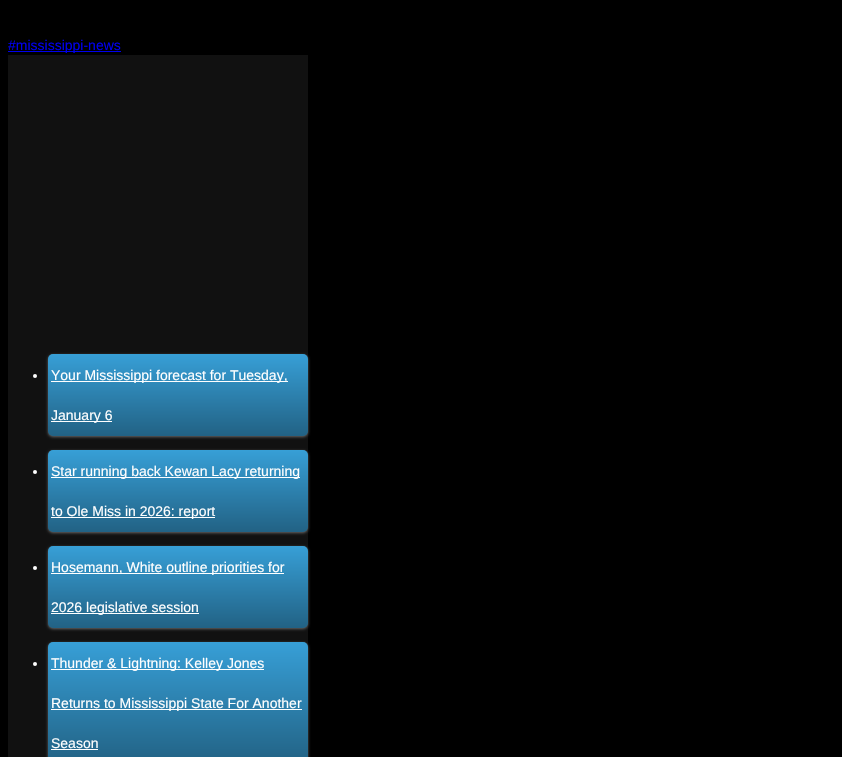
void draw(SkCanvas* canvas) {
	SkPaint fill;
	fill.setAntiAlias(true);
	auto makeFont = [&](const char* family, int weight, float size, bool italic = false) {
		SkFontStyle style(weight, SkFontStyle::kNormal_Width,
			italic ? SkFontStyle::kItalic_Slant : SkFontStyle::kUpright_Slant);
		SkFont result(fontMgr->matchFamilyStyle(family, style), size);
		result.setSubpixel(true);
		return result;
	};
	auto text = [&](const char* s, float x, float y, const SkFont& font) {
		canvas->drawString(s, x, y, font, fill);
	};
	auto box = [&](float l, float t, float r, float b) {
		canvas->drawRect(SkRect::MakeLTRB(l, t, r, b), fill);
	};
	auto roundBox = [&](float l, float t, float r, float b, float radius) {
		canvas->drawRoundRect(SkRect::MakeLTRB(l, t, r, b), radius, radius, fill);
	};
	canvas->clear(0xFF000000);
	fill.setColor(0xFF0000EE);
	box(8, 51, 121, 52);
	fill.setColor(0xFF111111);
	box(8, 55, 308, 757);
	fill.setColor(0xFFFFFFFF);
	canvas->drawCircle(35, 376, 2, fill);
	fill.setColor(0xFF666666);
	fill.setMaskFilter(SkMaskFilter::MakeBlur(kNormal_SkBlurStyle, 1.5f));
	canvas->drawRoundRect(SkRect::MakeLTRB(48, 355, 308, 437), 5, 5, fill);
	fill.setMaskFilter(nullptr);
	{
		const SkColor colors[] = {0xFF379FD7, 0xFF226284};
		const float stops[] = {0, 1};
		const SkPoint ends[] = {{178, 354}, {178, 436}};
		fill.setShader(SkGradientShader::MakeLinear(ends, colors, stops, 2, SkTileMode::kClamp));
		fill.setAlpha(255);
	}
	roundBox(48, 354, 308, 436, 5);
	fill.setShader(nullptr);
	fill.setColor(0xFFFFFFFF);
	box(51, 381, 288, 382);
	box(51, 421, 112, 422);
	canvas->drawCircle(35, 472, 2, fill);
	fill.setColor(0xFF666666);
	fill.setMaskFilter(SkMaskFilter::MakeBlur(kNormal_SkBlurStyle, 1.5f));
	canvas->drawRoundRect(SkRect::MakeLTRB(48, 451, 308, 533), 5, 5, fill);
	fill.setMaskFilter(nullptr);
	{
		const SkColor colors[] = {0xFF379FD7, 0xFF226284};
		const float stops[] = {0, 1};
		const SkPoint ends[] = {{178, 450}, {178, 532}};
		fill.setShader(SkGradientShader::MakeLinear(ends, colors, stops, 2, SkTileMode::kClamp));
		fill.setAlpha(255);
	}
	roundBox(48, 450, 308, 532, 5);
	fill.setShader(nullptr);
	fill.setColor(0xFFFFFFFF);
	box(51, 477, 300, 478);
	box(51, 517, 215, 518);
	canvas->drawCircle(35, 568, 2, fill);
	fill.setColor(0xFF666666);
	fill.setMaskFilter(SkMaskFilter::MakeBlur(kNormal_SkBlurStyle, 1.5f));
	canvas->drawRoundRect(SkRect::MakeLTRB(48, 547, 308, 629), 5, 5, fill);
	fill.setMaskFilter(nullptr);
	{
		const SkColor colors[] = {0xFF379FD7, 0xFF226284};
		const float stops[] = {0, 1};
		const SkPoint ends[] = {{178, 546}, {178, 628}};
		fill.setShader(SkGradientShader::MakeLinear(ends, colors, stops, 2, SkTileMode::kClamp));
		fill.setAlpha(255);
	}
	roundBox(48, 546, 308, 628, 5);
	fill.setShader(nullptr);
	fill.setColor(0xFFFFFFFF);
	box(51, 573, 284, 574);
	box(51, 613, 199, 614);
	canvas->drawCircle(35, 664, 2, fill);
	fill.setColor(0xFF666666);
	fill.setMaskFilter(SkMaskFilter::MakeBlur(kNormal_SkBlurStyle, 1.5f));
	canvas->drawRoundRect(SkRect::MakeLTRB(48, 643, 308, 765), 5, 5, fill);
	fill.setMaskFilter(nullptr);
	{
		const SkColor colors[] = {0xFF379FD7, 0xFF226284};
		const float stops[] = {0, 1};
		const SkPoint ends[] = {{178, 642}, {178, 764}};
		fill.setShader(SkGradientShader::MakeLinear(ends, colors, stops, 2, SkTileMode::kClamp));
		fill.setAlpha(255);
	}
	roundBox(48, 642, 308, 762, 5);
	fill.setShader(nullptr);
	fill.setColor(0xFFFFFFFF);
	box(51, 669, 264, 670);
	box(51, 709, 302, 710);
	box(51, 749, 98, 750);
	auto font1 = makeFont("Liberation Sans", 400, 14);
	fill.setColor(0xFF0000EE);
	text("#mississippi-news", 8, 50, font1);
	fill.setColor(0xFFFFFFFF);
	text("Your Mississippi forecast for Tuesday,", 51, 380, font1);
	text("January 6", 51, 420, font1);
	text("Star running back Kewan Lacy returning", 51, 476, font1);
	text("to Ole Miss in 2026: report", 51, 516, font1);
	text("Hosemann, White outline priorities for", 51, 572, font1);
	text("2026 legislative session", 51, 612, font1);
	text("Thunder & Lightning: Kelley Jones", 51, 668, font1);
	text("Returns to Mississippi State For Another", 51, 708, font1);
	text("Season", 51, 748, font1);
}
